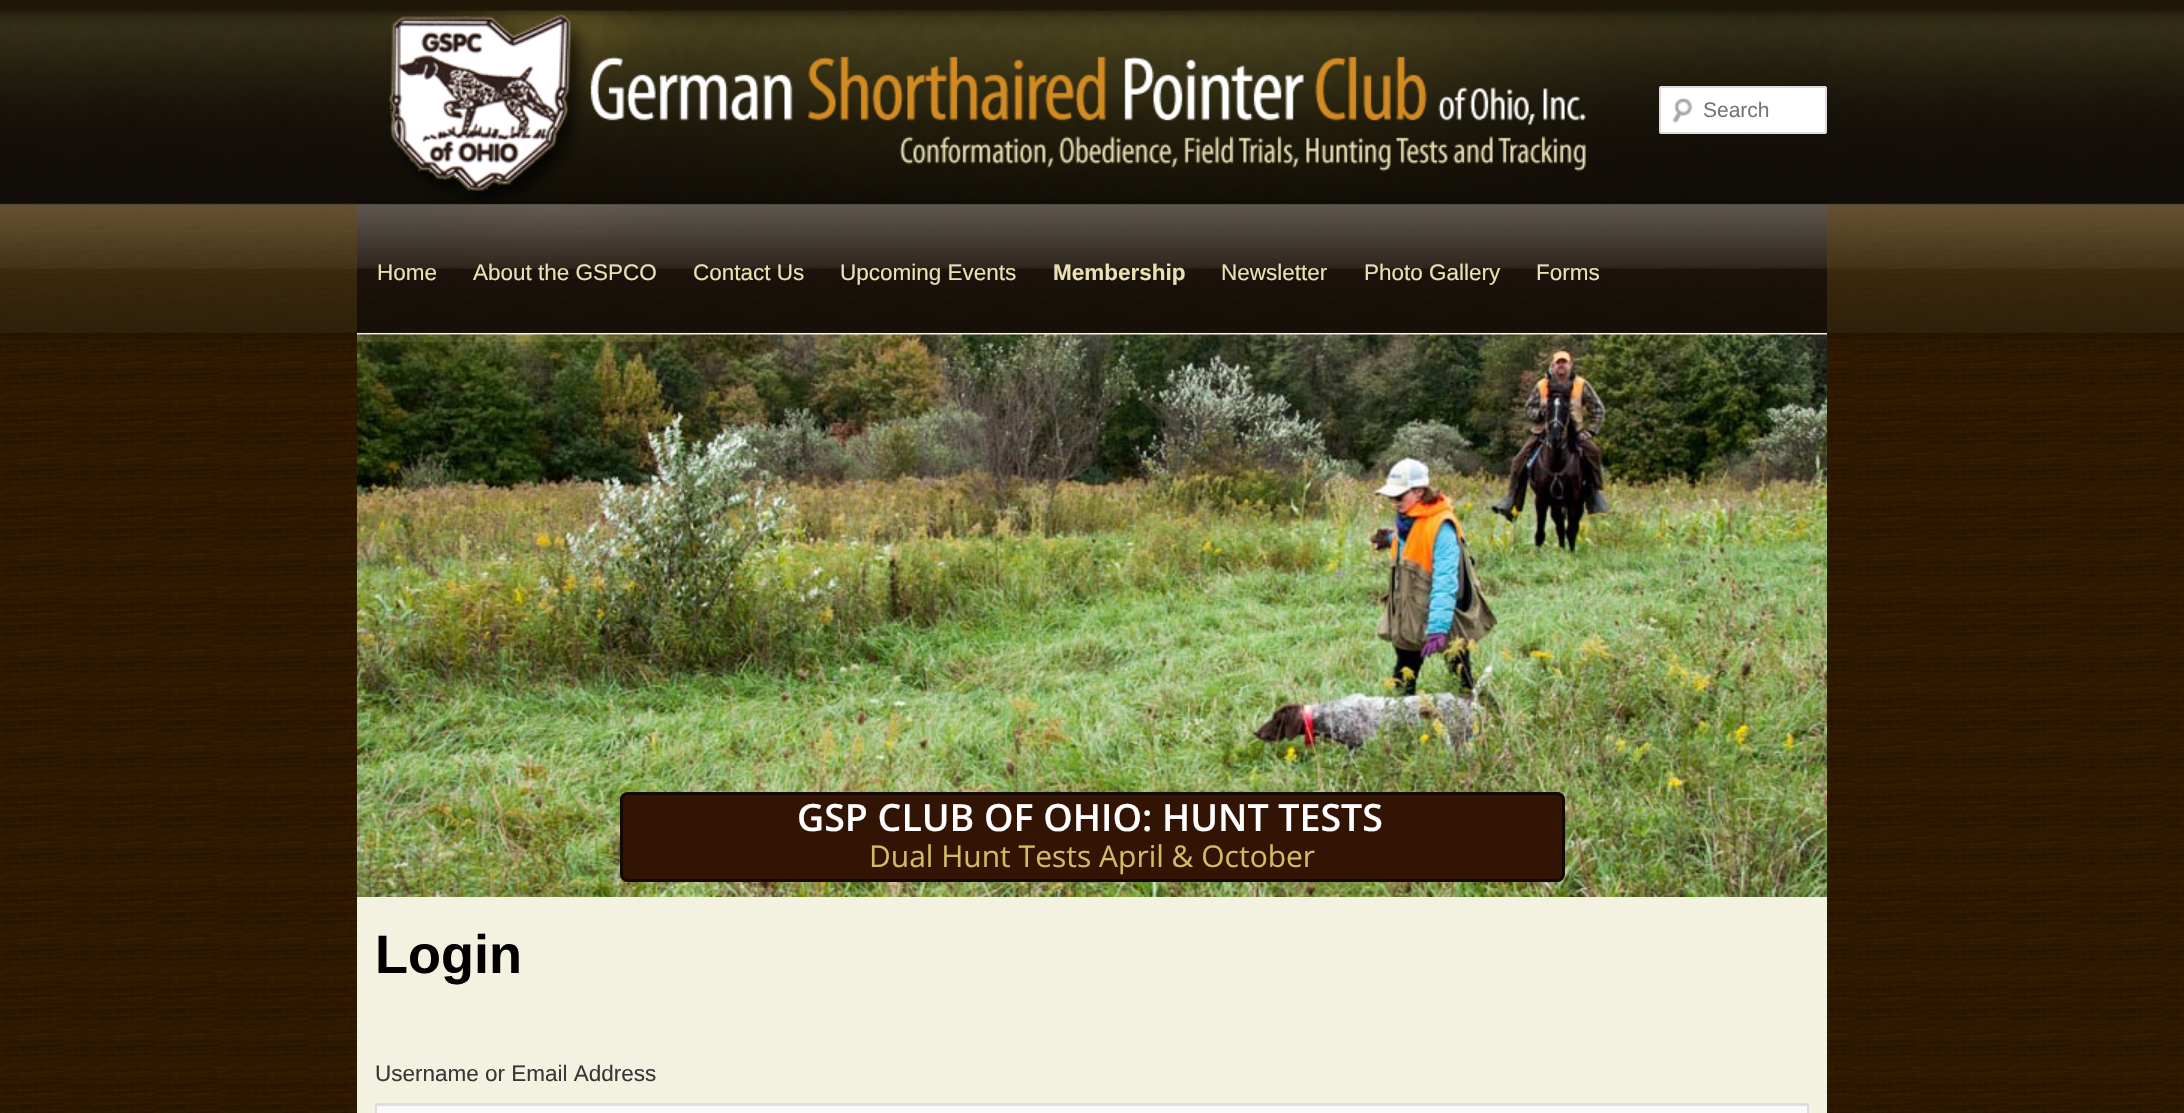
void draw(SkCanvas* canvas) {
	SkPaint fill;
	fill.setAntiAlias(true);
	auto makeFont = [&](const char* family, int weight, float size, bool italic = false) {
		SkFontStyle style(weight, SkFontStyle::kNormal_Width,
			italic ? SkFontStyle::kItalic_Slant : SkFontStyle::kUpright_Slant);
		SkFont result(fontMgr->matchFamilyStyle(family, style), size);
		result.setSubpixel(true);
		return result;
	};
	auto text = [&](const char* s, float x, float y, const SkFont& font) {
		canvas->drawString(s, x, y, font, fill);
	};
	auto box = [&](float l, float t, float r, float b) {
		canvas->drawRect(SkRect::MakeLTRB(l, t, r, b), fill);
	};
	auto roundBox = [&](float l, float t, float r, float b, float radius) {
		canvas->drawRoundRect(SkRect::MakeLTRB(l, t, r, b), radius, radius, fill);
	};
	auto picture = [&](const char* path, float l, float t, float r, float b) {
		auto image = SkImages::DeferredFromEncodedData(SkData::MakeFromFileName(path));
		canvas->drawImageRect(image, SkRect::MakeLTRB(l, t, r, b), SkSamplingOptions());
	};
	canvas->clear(0xFFFFFFFF);
	picture("image0.png", 0, 352, 2184, 1113);
	picture("image1.png", 0, 0, 2184, 353);
	fill.setColor(0xFFF3F2E0);
	box(357, 333, 1827, 1113);
	picture("image2.png", 357, 0, 1827, 333);
	picture("image3.png", 375, 14, 591, 204);
	picture("image4.png", 579, 56, 1587, 204);
	fill.setColor(0xFFFFFFFF);
	roundBox(1659, 86, 1827, 134, 3);
	picture("image5.png", 1672, 97, 1693, 124);
	fill.setStyle(SkPaint::kStroke_Style);
	fill.setStrokeWidth(2);
	fill.setColor(0xFFDDDDDD);
	canvas->drawRoundRect(SkRect::MakeLTRB(1660, 87, 1826, 133), 2, 2, fill);
	picture("image6.png", 357, 334, 1827, 897);
	fill.setStyle(SkPaint::kFill_Style);
	fill.setColor(0x26D1BC66);
	box(357, 335, 663, 342);
	fill.setColor(0xFF311404);
	roundBox(620, 792, 1565, 882, 8);
	fill.setStyle(SkPaint::kStroke_Style);
	fill.setStrokeWidth(3);
	fill.setColor(0x99020000);
	canvas->drawRoundRect(SkRect::MakeLTRB(621.5f, 793.5f, 1563.5f, 880.5f), 6.5f, 6.5f, fill);
	fill.setStyle(SkPaint::kFill_Style);
	fill.setColor(0xFFFAFAFA);
	box(377, 1106, 1807, 1113);
	fill.setColor(0xFFE1E1E1);
	box(377, 1105, 1808, 1106);
	fill.setStyle(SkPaint::kStroke_Style);
	fill.setStrokeWidth(2);
	fill.setColor(0xFFDDDDDD);
	canvas->drawRect(SkRect::MakeLTRB(376, 1104, 1808, 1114), fill);
	auto font1 = makeFont("Liberation Sans", 400, 21);
	fill.setStyle(SkPaint::kFill_Style);
	fill.setColor(0xFF757575);
	text("Search", 1703, 117, font1);
	auto font2 = makeFont("Liberation Sans", 400, 22.5f);
	fill.setColor(0xFFEAE0B4);
	text("Home", 377, 280, font2);
	text("About the GSPCO", 473, 280, font2);
	text("Contact Us", 693, 280, font2);
	text("Upcoming Events", 840, 280, font2);
	auto font3 = makeFont("Liberation Sans", 700, 22.5f);
	text("Membership", 1053, 280, font3);
	text("Newsletter", 1221, 280, font2);
	text("Photo Gallery", 1364, 280, font2);
	text("Forms", 1536, 280, font2);
	auto font4 = makeFont("Open Sans", 600, 37.5f);
	fill.setColor(0xFFFFFFFF);
	text("GSP CLUB OF OHIO: HUNT TESTS", 797, 831, font4);
	auto font5 = makeFont("Open Sans", 400, 30);
	fill.setColor(0xFFD1BC66);
	text("Dual Hunt Tests April & October", 869, 867, font5);
	auto font6 = makeFont("Liberation Sans", 700, 54);
	fill.setColor(0xFF000000);
	text("Login", 375, 973, font6);
	fill.setColor(0xFF373737);
	text("Username or Email Address", 375, 1081, font2);
}
